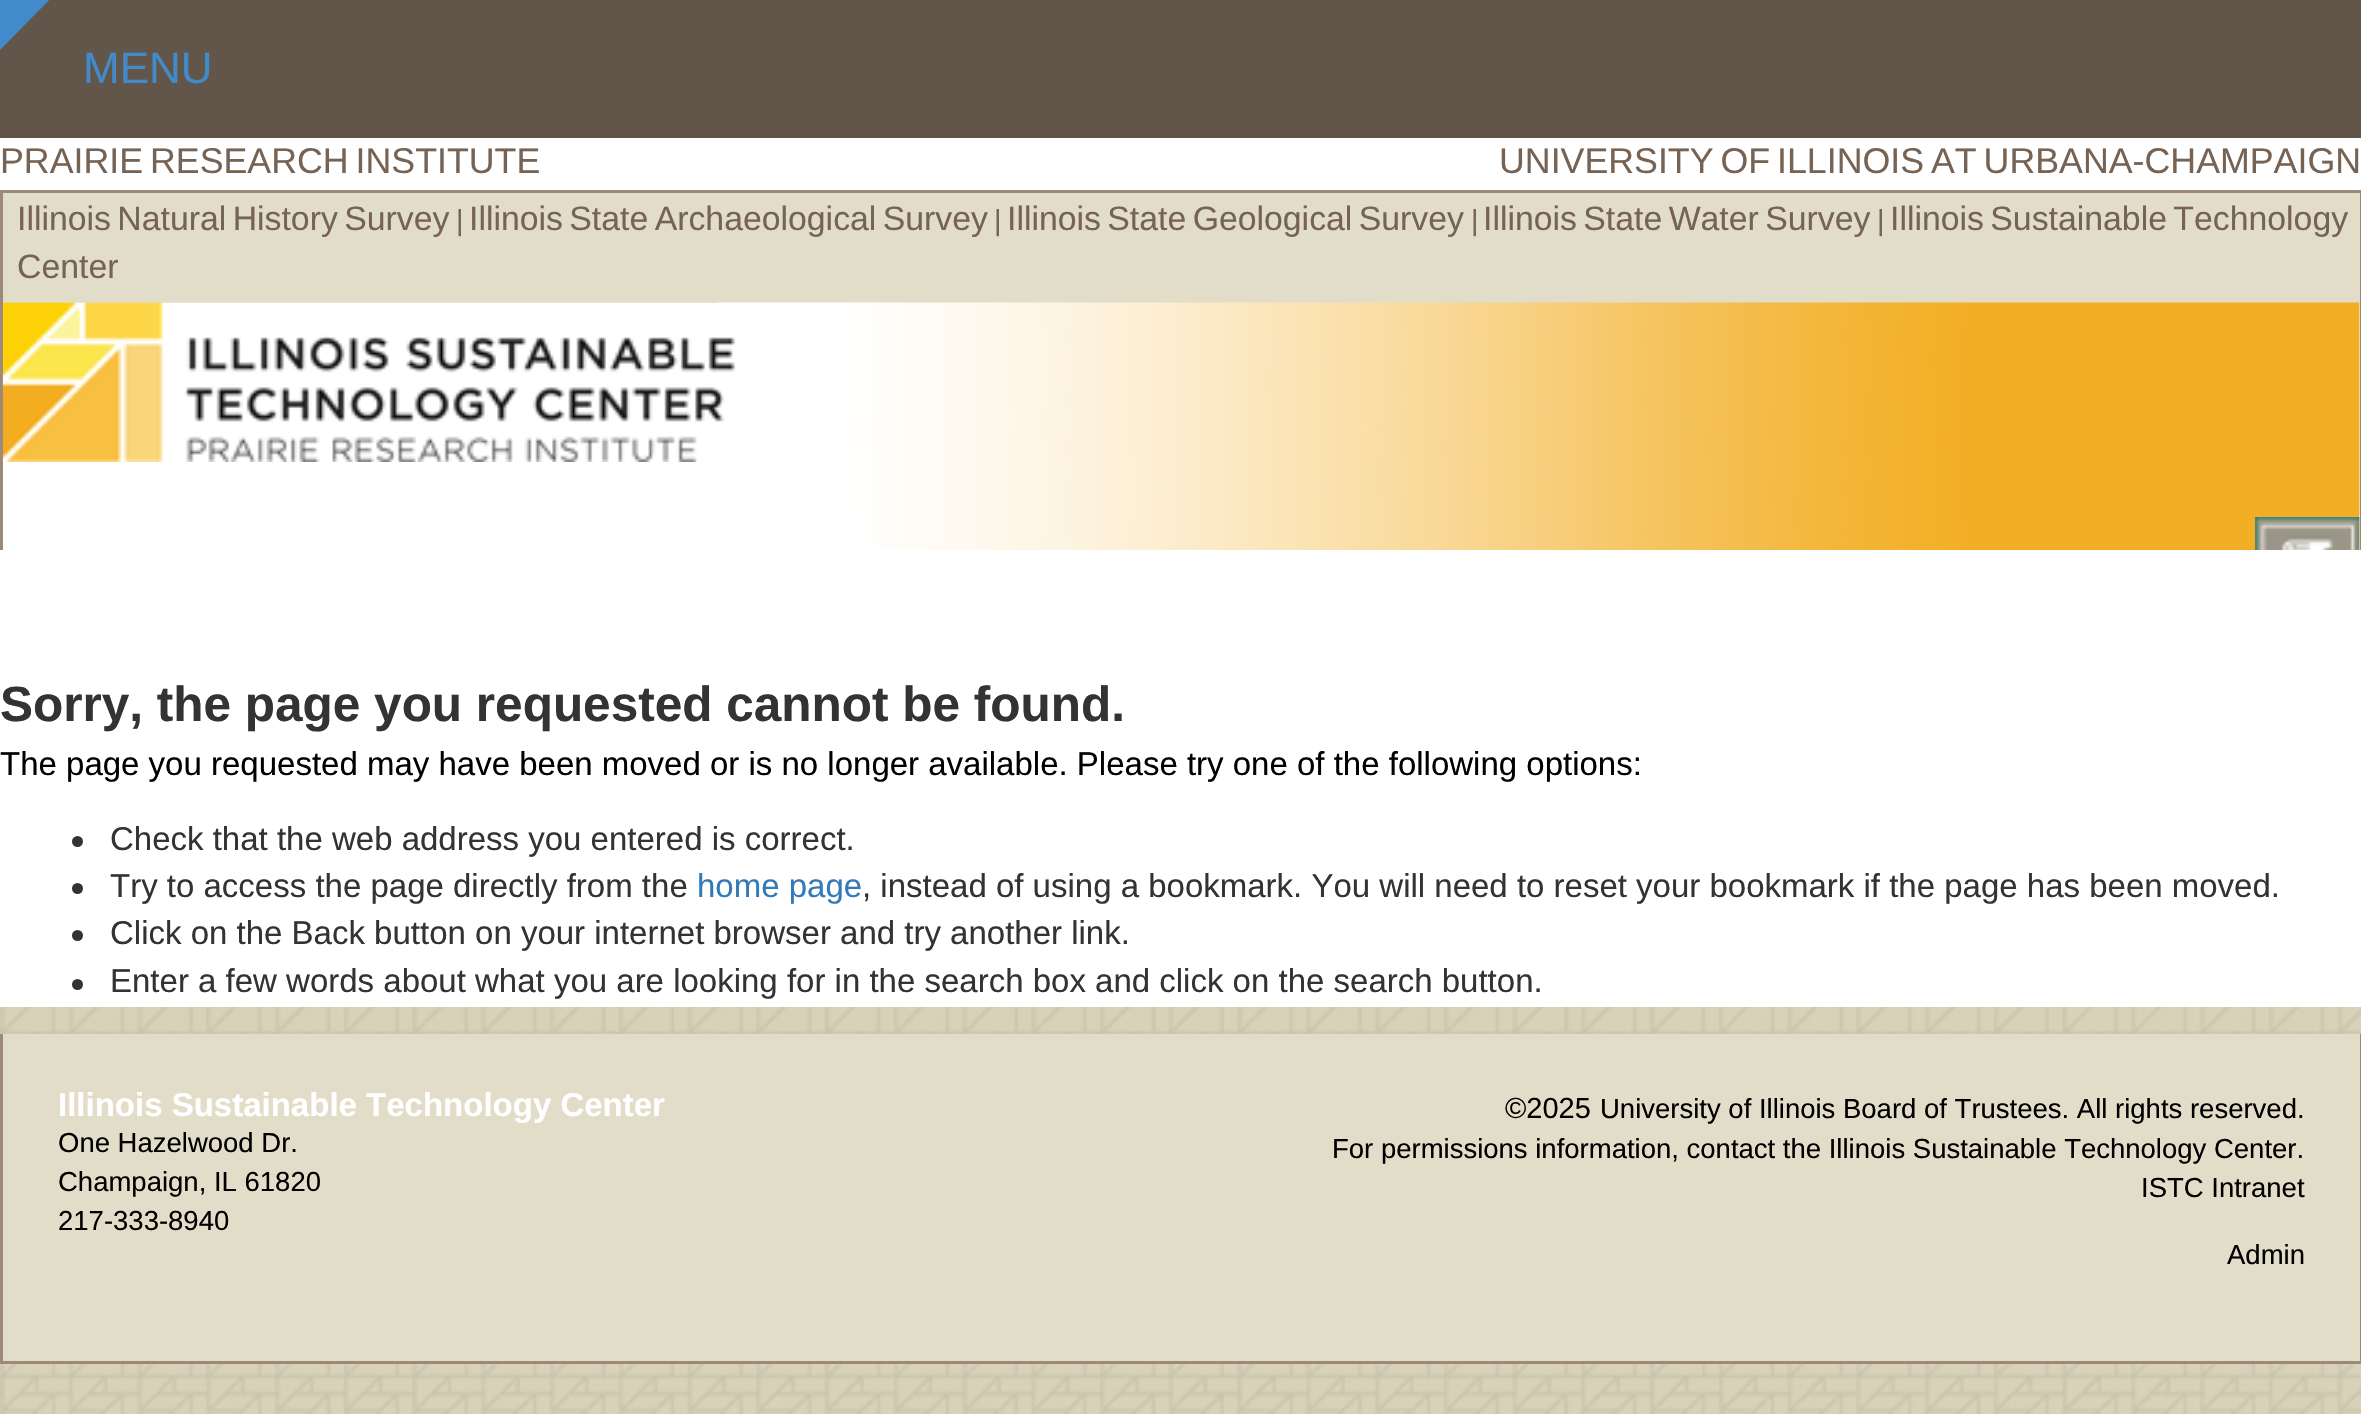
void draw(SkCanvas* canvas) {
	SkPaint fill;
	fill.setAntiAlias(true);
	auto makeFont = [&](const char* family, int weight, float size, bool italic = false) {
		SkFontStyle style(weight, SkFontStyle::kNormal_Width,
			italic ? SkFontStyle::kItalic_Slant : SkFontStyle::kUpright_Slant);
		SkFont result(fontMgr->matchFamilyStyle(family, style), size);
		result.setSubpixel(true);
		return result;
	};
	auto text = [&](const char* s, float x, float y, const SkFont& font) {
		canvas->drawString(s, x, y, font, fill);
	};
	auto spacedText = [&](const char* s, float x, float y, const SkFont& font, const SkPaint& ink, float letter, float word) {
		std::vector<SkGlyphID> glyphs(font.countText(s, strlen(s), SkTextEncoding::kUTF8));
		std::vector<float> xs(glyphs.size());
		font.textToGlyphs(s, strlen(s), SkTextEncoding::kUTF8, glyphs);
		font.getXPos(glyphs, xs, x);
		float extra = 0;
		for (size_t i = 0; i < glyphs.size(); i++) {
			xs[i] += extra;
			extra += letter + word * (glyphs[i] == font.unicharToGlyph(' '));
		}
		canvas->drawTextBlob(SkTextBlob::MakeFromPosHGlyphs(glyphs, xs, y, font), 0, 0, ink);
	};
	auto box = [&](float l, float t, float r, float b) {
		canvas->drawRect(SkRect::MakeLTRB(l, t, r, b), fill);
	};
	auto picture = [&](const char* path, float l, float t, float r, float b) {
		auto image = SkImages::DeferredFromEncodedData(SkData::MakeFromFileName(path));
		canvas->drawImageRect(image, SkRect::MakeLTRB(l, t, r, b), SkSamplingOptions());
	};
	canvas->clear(0xFFFFFFFF);
	picture("image0.png", 0, 1007, 2361, 1414);
	fill.setColor(0xFF62564A);
	box(0, 0, 2361, 138);
	fill.setColor(0xFF428BCA);
	canvas->drawPath(SkPathBuilder().moveTo(0, -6).lineTo(55, -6).lineTo(0, 50).close().detach(), fill);
	fill.setColor(0xFFE2DDC9);
	box(3, 193, 2360, 303);
	fill.setColor(0xFF9D8977);
	box(0, 190, 2361, 193);
	box(2360, 190, 2361, 550);
	box(0, 190, 3, 550);
	picture("image1.png", 717, 302, 2360, 550);
	picture("image2.png", 2, 302, 737, 462);
	picture("image3.png", 2255, 517, 2360, 550);
	fill.setColor(0xFF333333);
	canvas->drawCircle(77.5f, 841.5f, 5.5f, fill);
	canvas->drawCircle(77.5f, 888.5f, 5.5f, fill);
	canvas->drawCircle(77.5f, 935.5f, 5.5f, fill);
	canvas->drawCircle(77.5f, 984.5f, 5.5f, fill);
	fill.setColor(0xFFE2DDC9);
	box(3, 1034, 2360, 1361);
	fill.setColor(0xFF9D8977);
	box(2360, 1034, 2361, 1364);
	box(0, 1361, 2361, 1364);
	box(0, 1034, 3, 1364);
	auto font1 = makeFont("Liberation Sans", 400, 44);
	fill.setColor(0xFF428BCA);
	text("MENU", 83, 83, font1);
	auto font2 = makeFont("Liberation Sans", 400, 35.75f);
	fill.setColor(0xFF766354);
	spacedText("PRAIRIE RESEARCH INSTITUTE", 0, 173, font2, fill, 0, -3);
	spacedText("UNIVERSITY OF ILLINOIS AT URBANA-CHAMPAIGN", 1499, 173, font2, fill, 0, -3);
	auto font3 = makeFont("Liberation Sans", 400, 33.8f);
	spacedText("Illinois Natural History Survey", 17, 230, font3, fill, 0, -3);
	auto font4 = makeFont("Liberation Sans", 400, 29);
	text("|", 456, 230, font4);
	spacedText("Illinois State Archaeological Survey", 469, 230, font3, fill, 0, -3);
	text("|", 994, 230, font4);
	spacedText("Illinois State Geological Survey", 1007, 230, font3, fill, 0, -3);
	text("|", 1471, 230, font4);
	spacedText("Illinois State Water Survey", 1483, 230, font3, fill, 0, -3);
	text("|", 1877, 230, font4);
	spacedText("Illinois Sustainable Technology", 1890, 230, font3, fill, 0, -3);
	text("Center", 17, 278, font3);
	auto font5 = makeFont("Liberation Sans", 700, 49.5f);
	fill.setColor(0xFF333333);
	text("Sorry, the page you requested cannot be found.", 0, 721, font5);
	auto font6 = makeFont("Liberation Sans", 400, 33);
	fill.setColor(0xFF000000);
	text("The page you requested may have been moved or is no longer available. Please try one of the following options:", 0, 775, font6);
	fill.setColor(0xFF333333);
	text("Check that the web address you entered is correct.", 110, 850, font6);
	text("Try to access the page directly from the", 110, 897, font6);
	fill.setColor(0xFF337AB7);
	text("home page", 697, 897, font6);
	fill.setColor(0xFF333333);
	text(", instead of using a bookmark. You will need to reset your bookmark if the page has been moved.", 862, 897, font6);
	text("Click on the Back button on your internet browser and try another link.", 110, 944, font6);
	text("Enter a few words about what you are looking for in the search box and click on the search button.", 110, 992, font6);
	auto font7 = makeFont("Liberation Sans", 700, 33);
	fill.setColor(0xFFFFFFFF);
	text("Illinois Sustainable Technology Center", 58, 1116, font7);
	auto font8 = makeFont("Liberation Sans", 400, 27.5f);
	fill.setColor(0xFF000000);
	text("One Hazelwood Dr.", 58, 1152, font8);
	text("Champaign, IL 61820", 58, 1191, font8);
	text("217-333-8940", 58, 1230, font8);
	text("©2025", 1505, 1118, font4);
	text("University of Illinois Board of Trustees. All rights reserved.", 1600, 1118, font8);
	text("For permissions information, contact the Illinois Sustainable Technology Center.", 1332, 1158, font8);
	text("ISTC Intranet", 2141, 1197, font8);
	text("Admin", 2227, 1264, font8);
}
